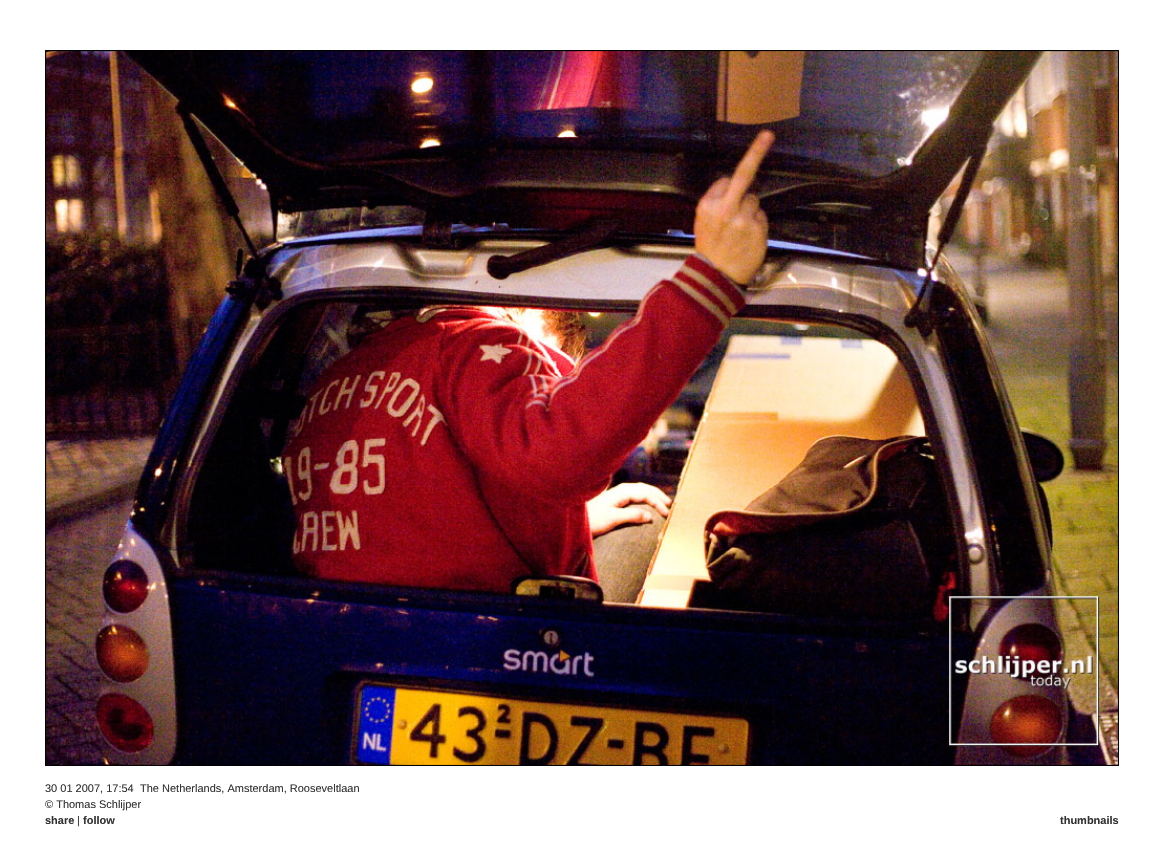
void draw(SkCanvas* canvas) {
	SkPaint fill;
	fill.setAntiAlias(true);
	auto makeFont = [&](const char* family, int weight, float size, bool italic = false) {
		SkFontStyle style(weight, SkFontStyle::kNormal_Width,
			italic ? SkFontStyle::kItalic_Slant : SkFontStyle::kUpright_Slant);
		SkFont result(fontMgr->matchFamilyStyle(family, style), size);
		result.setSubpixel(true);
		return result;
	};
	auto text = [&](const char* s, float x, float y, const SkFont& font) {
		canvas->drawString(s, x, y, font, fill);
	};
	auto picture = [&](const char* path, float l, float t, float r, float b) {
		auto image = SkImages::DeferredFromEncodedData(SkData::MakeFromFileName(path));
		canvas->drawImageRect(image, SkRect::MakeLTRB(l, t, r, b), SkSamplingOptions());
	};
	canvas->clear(0xFFFFFFFF);
	picture("image0.png", 45, 50, 1119, 766);
	auto font1 = makeFont("Liberation Sans", 400, 11);
	fill.setColor(0xFF333333);
	text("30 01 2007, 17:54", 45, 792, font1);
	text("The Netherlands, Amsterdam, Rooseveltlaan", 140, 792, font1);
	text("© Thomas Schlijper", 45, 808, font1);
	auto font2 = makeFont("Liberation Sans", 700, 11);
	text("share", 45, 824, font2);
	text("|", 77, 824, font1);
	text("follow", 83, 824, font2);
	text("thumbnails", 1060, 824, font2);
}
